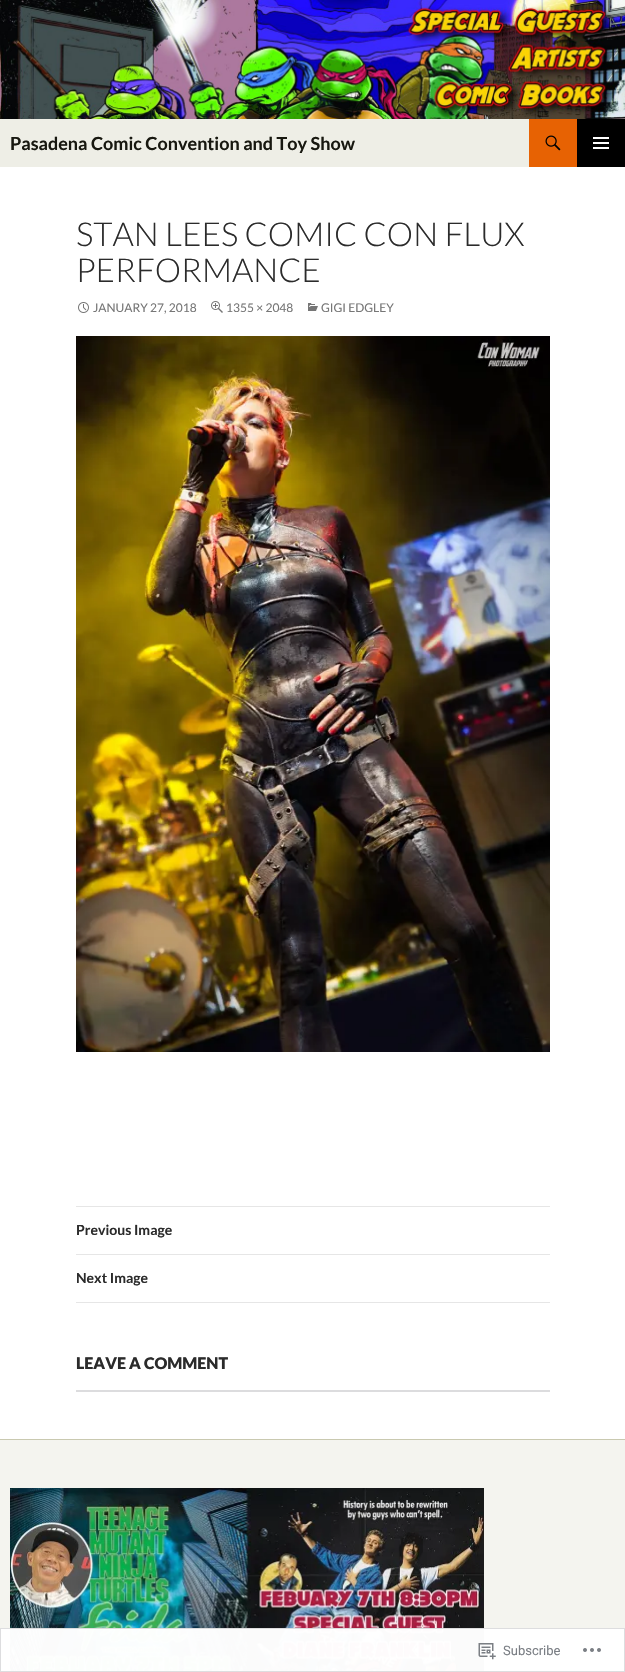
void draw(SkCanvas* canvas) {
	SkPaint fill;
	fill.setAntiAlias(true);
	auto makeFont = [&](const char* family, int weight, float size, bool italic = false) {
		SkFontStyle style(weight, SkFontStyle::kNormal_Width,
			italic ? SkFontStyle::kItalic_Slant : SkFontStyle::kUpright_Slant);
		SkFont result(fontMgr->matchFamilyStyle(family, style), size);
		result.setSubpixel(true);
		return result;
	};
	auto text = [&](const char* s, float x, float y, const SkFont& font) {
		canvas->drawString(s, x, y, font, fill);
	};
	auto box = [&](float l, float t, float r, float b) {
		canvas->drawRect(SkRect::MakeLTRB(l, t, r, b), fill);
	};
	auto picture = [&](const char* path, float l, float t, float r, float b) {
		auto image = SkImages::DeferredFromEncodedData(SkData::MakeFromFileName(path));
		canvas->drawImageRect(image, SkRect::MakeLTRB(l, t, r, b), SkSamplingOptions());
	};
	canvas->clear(0xFFFFFFFF);
	picture("image0.png", 0, 0, 625, 119);
	fill.setColor(0xFFEEEEE6);
	box(0, 119, 529, 167);
	fill.setColor(0xFFE76203);
	box(529, 119, 577, 167);
	picture("image1.png", 545, 135, 561, 151);
	fill.setColor(0xFF000000);
	box(577, 119, 625, 167);
	picture("image2.png", 593, 137, 609, 149);
	picture("image3.png", 78, 302, 89, 313);
	picture("image4.png", 211, 301, 223, 313);
	picture("image5.png", 308, 303, 318, 311);
	picture("image6.png", 76, 336, 550, 1052);
	fill.setColor(0xFFE6E6E6);
	box(76, 1206, 550, 1207);
	box(76, 1254, 550, 1255);
	box(76, 1302, 550, 1303);
	fill.setColor(0xFFDCDCDE);
	box(76, 1390, 550, 1392);
	fill.setColor(0xFFF4F4EF);
	box(0, 1440, 625, 1672);
	fill.setColor(0xFFC9C9B0);
	box(0, 1439, 625, 1440);
	picture("image7.png", 10, 1488, 484, 1672);
	fill.setColor(0xFAFFFFFF);
	box(0, 1628, 625, 1672);
	fill.setStyle(SkPaint::kStroke_Style);
	fill.setStrokeWidth(1);
	fill.setColor(0xFADCDCDE);
	canvas->drawRect(SkRect::MakeLTRB(0.5f, 1628.5f, 624.5f, 1671.5f), fill);
	picture("image8.png", 478, 1643, 496, 1660);
	picture("image9.png", 583, 1648, 601, 1652);
	auto font1 = makeFont("Lato", 700, 18);
	fill.setStyle(SkPaint::kFill_Style);
	fill.setColor(0xFF181810);
	text("Pasadena Comic Convention and Toy Show", 10, 150, font1);
	auto font2 = makeFont("Lato", 300, 33);
	fill.setColor(0xFF2B2B2B);
	text("STAN LEES COMIC CON FLUX", 76, 246, font2);
	text("PERFORMANCE", 76, 282, font2);
	auto font3 = makeFont("Lato", 400, 12);
	fill.setColor(0xFF767676);
	text("JANUARY 27, 2018", 93, 312, font3);
	text("1355 × 2048", 226, 312, font3);
	text("GIGI EDGLEY", 321, 312, font3);
	auto font4 = makeFont("Lato", 700, 14);
	fill.setColor(0xFF2B2B2B);
	text("Previous Image", 76, 1235, font4);
	text("Next Image", 76, 1283, font4);
	auto font5 = makeFont("Lato", 900, 16);
	text("LEAVE A COMMENT", 76, 1369, font5);
	auto font6 = makeFont("Roboto", 400, 13);
	fill.setColor(0xFF7A7E84);
	text("Subscribe", 503, 1655, font6);
}
